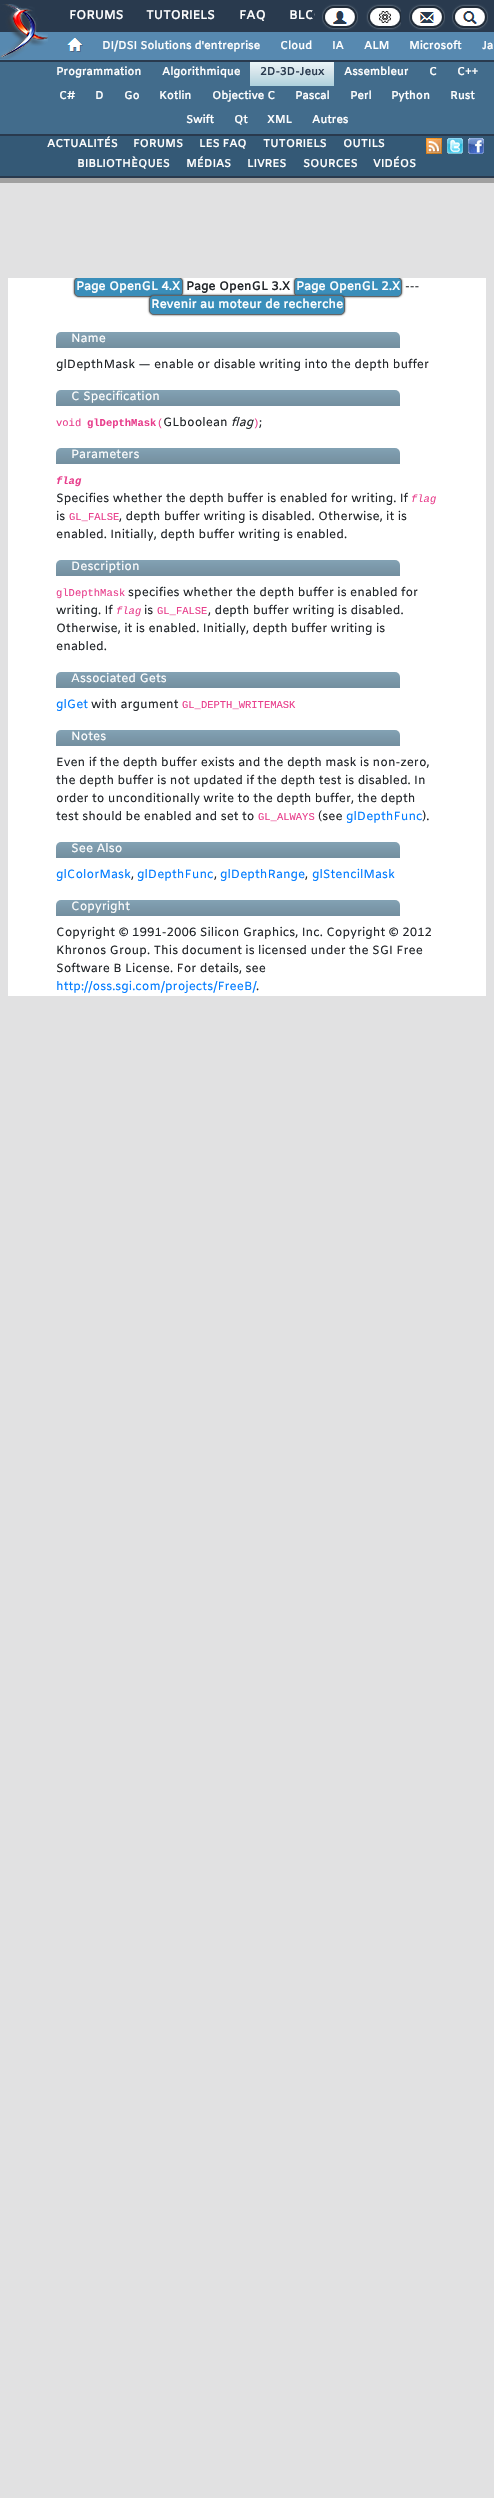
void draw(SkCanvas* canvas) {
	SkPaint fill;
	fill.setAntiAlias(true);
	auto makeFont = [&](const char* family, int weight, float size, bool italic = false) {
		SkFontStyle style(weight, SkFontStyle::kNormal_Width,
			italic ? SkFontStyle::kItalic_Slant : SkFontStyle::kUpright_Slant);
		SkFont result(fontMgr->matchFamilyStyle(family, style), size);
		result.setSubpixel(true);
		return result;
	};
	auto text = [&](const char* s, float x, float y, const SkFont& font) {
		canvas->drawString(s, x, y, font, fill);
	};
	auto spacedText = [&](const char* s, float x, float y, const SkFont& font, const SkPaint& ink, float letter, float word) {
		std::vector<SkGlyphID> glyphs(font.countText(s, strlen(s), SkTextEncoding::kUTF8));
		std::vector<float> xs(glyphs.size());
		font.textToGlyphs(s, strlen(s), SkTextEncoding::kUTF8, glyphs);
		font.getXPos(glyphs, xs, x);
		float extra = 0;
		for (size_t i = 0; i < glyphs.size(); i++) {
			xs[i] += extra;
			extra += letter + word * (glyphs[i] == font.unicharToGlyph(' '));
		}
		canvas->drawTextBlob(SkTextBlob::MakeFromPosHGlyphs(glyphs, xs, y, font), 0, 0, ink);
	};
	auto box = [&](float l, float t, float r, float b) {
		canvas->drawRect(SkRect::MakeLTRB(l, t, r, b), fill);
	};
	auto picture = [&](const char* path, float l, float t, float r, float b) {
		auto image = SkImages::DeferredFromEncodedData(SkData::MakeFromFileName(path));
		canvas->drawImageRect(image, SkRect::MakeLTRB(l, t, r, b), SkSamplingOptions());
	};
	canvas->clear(0xFF293A4E);
	fill.setColor(0xFF5789B0);
	box(0, 32, 494, 60);
	picture("image0.png", 0, 4, 48, 59);
	picture("image1.png", 322, 4, 358, 30);
	picture("image2.png", 366, 4, 401, 30);
	picture("image3.png", 409, 4, 445, 30);
	picture("image4.png", 452, 4, 488, 30);
	picture("image5.png", 67, 38, 83, 52);
	fill.setColor(0xFF426C8C);
	box(0, 62, 494, 134);
	{
		const SkColor colors[] = {0xFFEAF5F8, 0xFFD8E6EC, 0xFFAED1DD};
		const float stops[] = {0, 0.37f, 1};
		const SkPoint ends[] = {{292, 62}, {292, 86}};
		fill.setShader(SkGradientShader::MakeLinear(ends, colors, stops, 3, SkTileMode::kClamp));
		fill.setAlpha(255);
	}
	box(250, 62, 334, 86);
	fill.setShader(nullptr);
	fill.setColor(0xFF345976);
	box(0, 136, 494, 176);
	picture("image6.png", 426, 138, 442, 154);
	picture("image7.png", 447, 138, 463, 154);
	picture("image8.png", 468, 138, 484, 154);
	fill.setColor(0xFFE1E1E2);
	box(0, 278, 494, 2498);
	fill.setColor(0xFFFFFFFF);
	box(8, 278, 486, 996);
	fill.setColor(0xFF343434);
	fill.setMaskFilter(SkMaskFilter::MakeBlur(kNormal_SkBlurStyle, 1));
	canvas->drawRoundRect(SkRect::MakeLTRB(74, 277, 183, 297), 5, 5, fill);
	fill.setMaskFilter(nullptr);
	fill.setColor(0xFF3A8EBA);
	canvas->drawRoundRect(SkRect::MakeLTRB(74.5f, 277.5f, 182.5f, 296.5f), 4.5f, 4.5f, fill);
	fill.setStyle(SkPaint::kStroke_Style);
	fill.setStrokeWidth(1);
	fill.setColor(0xFF656565);
	canvas->drawRoundRect(SkRect::MakeLTRB(74.5f, 277.5f, 182.5f, 296.5f), 4.5f, 4.5f, fill);
	fill.setStyle(SkPaint::kFill_Style);
	fill.setColor(0xFF343434);
	fill.setMaskFilter(SkMaskFilter::MakeBlur(kNormal_SkBlurStyle, 1));
	canvas->drawRoundRect(SkRect::MakeLTRB(294, 277, 402, 297), 5, 5, fill);
	fill.setMaskFilter(nullptr);
	fill.setColor(0xFF3A8EBA);
	canvas->drawRoundRect(SkRect::MakeLTRB(294.5f, 277.5f, 401.5f, 296.5f), 4.5f, 4.5f, fill);
	fill.setStyle(SkPaint::kStroke_Style);
	fill.setColor(0xFF656565);
	canvas->drawRoundRect(SkRect::MakeLTRB(294.5f, 277.5f, 401.5f, 296.5f), 4.5f, 4.5f, fill);
	fill.setStyle(SkPaint::kFill_Style);
	fill.setColor(0xFFE1E1E2);
	box(0, 183, 494, 278);
	fill.setColor(0xFFA0A0A0);
	box(0, 178, 494, 183);
	fill.setColor(0xFF343434);
	fill.setMaskFilter(SkMaskFilter::MakeBlur(kNormal_SkBlurStyle, 1));
	canvas->drawRoundRect(SkRect::MakeLTRB(149, 295, 345, 315), 5, 5, fill);
	fill.setMaskFilter(nullptr);
	fill.setColor(0xFF3A8EBA);
	canvas->drawRoundRect(SkRect::MakeLTRB(149.5f, 295.5f, 344.5f, 314.5f), 4.5f, 4.5f, fill);
	fill.setStyle(SkPaint::kStroke_Style);
	fill.setColor(0xFF656565);
	canvas->drawRoundRect(SkRect::MakeLTRB(149.5f, 295.5f, 344.5f, 314.5f), 4.5f, 4.5f, fill);
	picture("image9.png", 56, 332, 400, 348);
	picture("image9.png", 56, 390, 400, 406);
	picture("image9.png", 56, 448, 400, 464);
	picture("image9.png", 56, 560, 400, 576);
	picture("image9.png", 56, 672, 400, 688);
	picture("image9.png", 56, 730, 400, 746);
	picture("image9.png", 56, 842, 400, 858);
	picture("image9.png", 56, 900, 400, 916);
	auto font1 = makeFont("Amiko", 700, 12.25f);
	fill.setStyle(SkPaint::kFill_Style);
	fill.setColor(0xFFFFFFFF);
	spacedText("FORUMS", 69, 19, font1, fill, -0.25f, 0);
	spacedText("TUTORIELS", 146, 19, font1, fill, -0.25f, 0);
	text("FAQ", 239, 19, font1);
	text("BLO", 289, 19, font1);
	fill.setColor(0xFF293A4E);
	box(312, 11, 314, 18);
	auto font2 = makeFont("Amiko", 700, 11);
	fill.setColor(0xFFFFFFFF);
	text("DI/DSI Solutions d'entreprise", 102, 49, font2);
	text("Cloud", 280, 49, font2);
	text("IA", 332, 49, font2);
	text("ALM", 364, 49, font2);
	text("Microsoft", 409, 49, font2);
	text("Ja", 482, 49, font2);
	text("Programmation", 56, 75, font2);
	text("Algorithmique", 162, 75, font2);
	fill.setColor(0xFF293A4E);
	text("2D-3D-Jeux", 260, 75, font2);
	fill.setColor(0xFFFFFFFF);
	text("Assembleur", 344, 75, font2);
	text("C", 429, 75, font2);
	text("C++", 457, 75, font2);
	text("C#", 59, 99, font2);
	text("D", 95, 99, font2);
	text("Go", 124, 99, font2);
	text("Kotlin", 159, 99, font2);
	text("Objective C", 212, 99, font2);
	text("Pascal", 295, 99, font2);
	text("Perl", 350, 99, font2);
	text("Python", 391, 99, font2);
	text("Rust", 450, 99, font2);
	text("Swift", 186, 123, font2);
	text("Qt", 234, 123, font2);
	text("XML", 267, 123, font2);
	text("Autres", 312, 123, font2);
	text("ACTUALITÉS", 47, 147, font2);
	text("FORUMS", 133, 147, font2);
	text("LES FAQ", 199, 147, font2);
	text("TUTORIELS", 263, 147, font2);
	text("OUTILS", 343, 147, font2);
	text("BIBLIOTHÈQUES", 77, 167, font2);
	text("MÉDIAS", 186, 167, font2);
	text("LIVRES", 247, 167, font2);
	text("SOURCES", 303, 167, font2);
	text("VIDÉOS", 373, 167, font2);
	auto font3 = makeFont("Amiko", 700, 12);
	text("Page OpenGL 4.X", 76, 290, font3);
	fill.setColor(0xFF212529);
	text("Page OpenGL 3.X", 186, 290, font3);
	fill.setColor(0xFFFFFFFF);
	text("Page OpenGL 2.X", 296, 290, font3);
	auto font4 = makeFont("Amiko", 400, 12);
	fill.setColor(0xFF212529);
	text("---", 405, 290, font4);
	fill.setColor(0xFFFFFFFF);
	text("Revenir au moteur de recherche", 151, 308, font3);
	text("Name", 71, 342, font4);
	fill.setColor(0xFF212529);
	text("glDepthMask — enable or disable writing into the depth buffer", 56, 368, font4);
	fill.setColor(0xFFFFFFFF);
	text("C Specification", 71, 400, font4);
	auto font5 = makeFont("Liberation Mono", 400, 10.5f);
	fill.setColor(0xFFE83E8C);
	text("void", 56, 426, font5);
	auto font6 = makeFont("Liberation Mono", 700, 10.5f);
	text("glDepthMask", 87, 426, font6);
	text("(", 157, 426, font5);
	fill.setColor(0xFF212529);
	text("GLboolean", 163, 426, font4);
	auto font7 = makeFont("Amiko", 400, 12, true);
	text("flag", 231, 426, font7);
	fill.setColor(0xFFE83E8C);
	text(")", 253, 426, font5);
	fill.setColor(0xFF212529);
	text(";", 259, 426, font4);
	fill.setColor(0xFFFFFFFF);
	text("Parameters", 71, 458, font4);
	auto font8 = makeFont("Liberation Mono", 700, 10.5f, true);
	fill.setColor(0xFFE83E8C);
	text("flag", 56, 484, font8);
	fill.setColor(0xFF212529);
	text("Specifies whether the depth buffer is enabled for writing. If", 56, 502, font4);
	auto font9 = makeFont("Liberation Mono", 400, 10.5f, true);
	fill.setColor(0xFFE83E8C);
	text("flag", 411, 502, font9);
	fill.setColor(0xFF212529);
	text("is", 56, 520, font4);
	fill.setColor(0xFFE83E8C);
	text("GL_FALSE", 69, 520, font5);
	fill.setColor(0xFF212529);
	text(", depth buffer writing is disabled. Otherwise, it is", 119, 520, font4);
	text("enabled. Initially, depth buffer writing is enabled.", 56, 538, font4);
	fill.setColor(0xFFFFFFFF);
	text("Description", 71, 570, font4);
	fill.setColor(0xFFE83E8C);
	text("glDepthMask", 56, 596, font5);
	fill.setColor(0xFF212529);
	text("specifies whether the depth buffer is enabled for", 128, 596, font4);
	text("writing. If", 56, 614, font4);
	fill.setColor(0xFFE83E8C);
	text("flag", 116, 614, font9);
	fill.setColor(0xFF212529);
	text("is", 144, 614, font4);
	fill.setColor(0xFFE83E8C);
	text("GL_FALSE", 157, 614, font5);
	fill.setColor(0xFF212529);
	text(", depth buffer writing is disabled.", 208, 614, font4);
	text("Otherwise, it is enabled. Initially, depth buffer writing is", 56, 632, font4);
	text("enabled.", 56, 650, font4);
	fill.setColor(0xFFFFFFFF);
	text("Associated Gets", 71, 682, font4);
	fill.setColor(0xFF007BFF);
	text("glGet", 56, 708, font4);
	fill.setColor(0xFF212529);
	text("with argument", 91, 708, font4);
	fill.setColor(0xFFE83E8C);
	text("GL_DEPTH_WRITEMASK", 182, 708, font5);
	fill.setColor(0xFFFFFFFF);
	text("Notes", 71, 740, font4);
	fill.setColor(0xFF212529);
	text("Even if the depth buffer exists and the depth mask is non-zero,", 56, 766, font4);
	text("the depth buffer is not updated if the depth test is disabled. In", 56, 784, font4);
	text("order to unconditionally write to the depth buffer, the depth", 56, 802, font4);
	text("test should be enabled and set to", 56, 820, font4);
	fill.setColor(0xFFE83E8C);
	text("GL_ALWAYS", 258, 820, font5);
	fill.setColor(0xFF212529);
	text("(see", 318, 820, font4);
	fill.setColor(0xFF007BFF);
	text("glDepthFunc", 346, 820, font4);
	fill.setColor(0xFF212529);
	text(").", 422, 820, font4);
	fill.setColor(0xFFFFFFFF);
	text("See Also", 71, 852, font4);
	fill.setColor(0xFF007BFF);
	text("glColorMask", 56, 878, font4);
	fill.setColor(0xFF212529);
	text(",", 131, 878, font4);
	fill.setColor(0xFF007BFF);
	text("glDepthFunc", 137, 878, font4);
	fill.setColor(0xFF212529);
	text(",", 214, 878, font4);
	fill.setColor(0xFF007BFF);
	text("glDepthRange", 220, 878, font4);
	fill.setColor(0xFF212529);
	text(",", 305, 878, font4);
	fill.setColor(0xFF007BFF);
	text("glStencilMask", 312, 878, font4);
	fill.setColor(0xFFFFFFFF);
	text("Copyright", 71, 910, font4);
	fill.setColor(0xFF212529);
	text("Copyright © 1991-2006 Silicon Graphics, Inc. Copyright © 2012", 56, 936, font4);
	text("Khronos Group. This document is licensed under the SGI Free", 56, 954, font4);
	text("Software B License. For details, see", 56, 972, font4);
	fill.setColor(0xFF007BFF);
	text("http://oss.sgi.com/projects/FreeB/", 56, 990, font4);
	fill.setColor(0xFF212529);
	text(".", 256, 990, font4);
}
